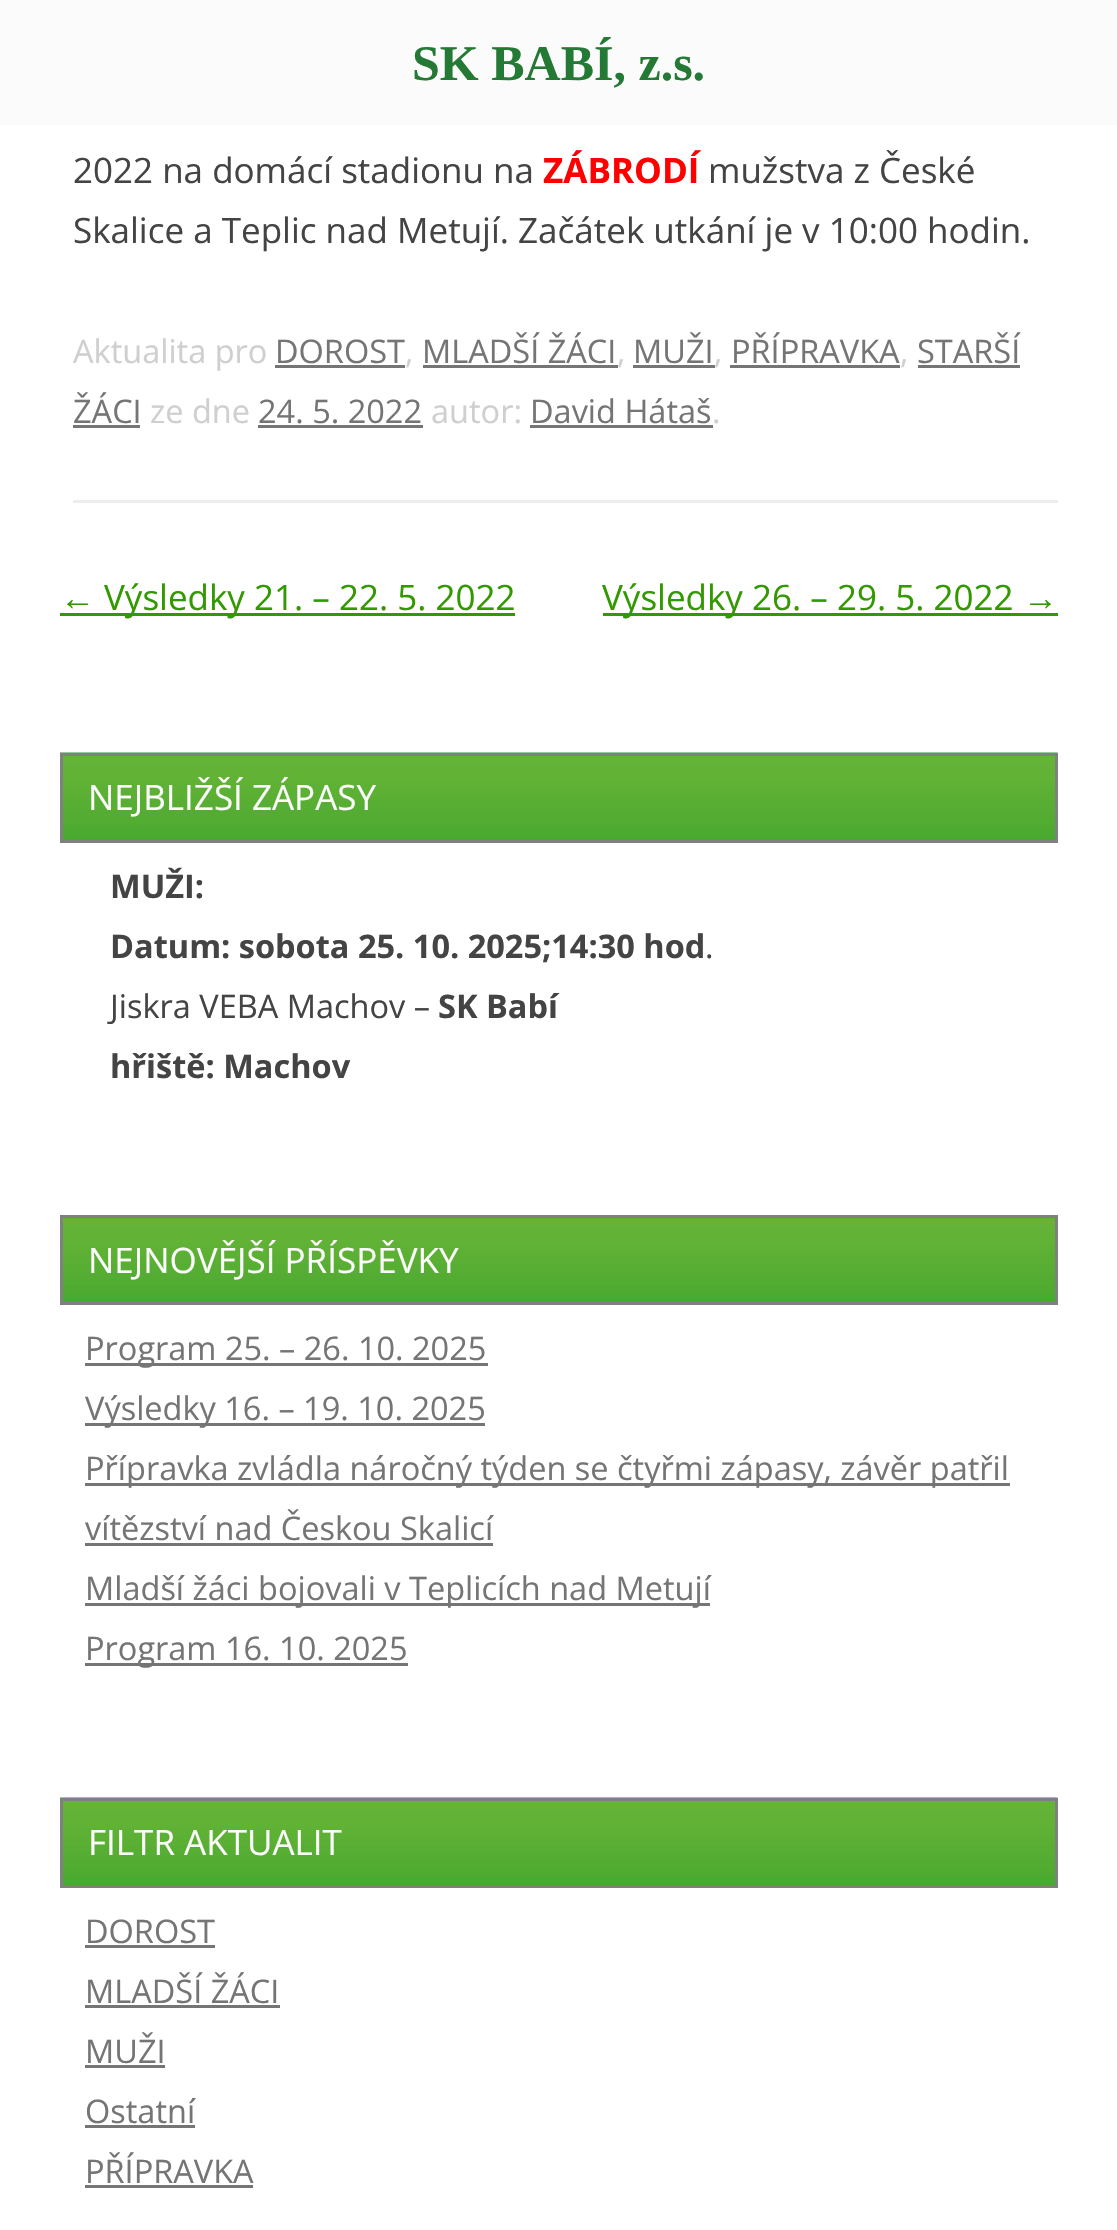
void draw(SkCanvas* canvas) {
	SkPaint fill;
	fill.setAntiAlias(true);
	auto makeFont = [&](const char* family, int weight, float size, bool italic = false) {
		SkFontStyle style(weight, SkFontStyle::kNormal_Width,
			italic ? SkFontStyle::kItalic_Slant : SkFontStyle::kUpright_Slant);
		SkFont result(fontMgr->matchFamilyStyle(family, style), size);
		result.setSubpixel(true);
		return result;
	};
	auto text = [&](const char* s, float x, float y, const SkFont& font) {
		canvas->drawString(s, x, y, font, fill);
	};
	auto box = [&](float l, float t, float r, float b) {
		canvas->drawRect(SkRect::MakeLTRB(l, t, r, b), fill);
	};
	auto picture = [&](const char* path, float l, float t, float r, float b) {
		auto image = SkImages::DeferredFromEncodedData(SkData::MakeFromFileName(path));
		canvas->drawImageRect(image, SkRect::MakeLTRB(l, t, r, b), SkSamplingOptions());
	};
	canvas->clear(0xFFFFFFFF);
	fill.setColor(0xFFFBFBFB);
	box(0, 0, 1117, 125);
	fill.setColor(0xFFEDEDED);
	box(73, 500, 1058, 503);
	fill.setColor(0xFF757575);
	box(275, 365, 405, 368);
	box(423, 365, 618, 368);
	box(633, 365, 715, 368);
	box(730, 365, 900, 368);
	box(918, 365, 1020, 368);
	box(73, 425, 140, 428);
	box(258, 425, 423, 428);
	box(530, 425, 713, 428);
	fill.setColor(0xFF339900);
	box(60, 613, 515, 616);
	box(603, 613, 1058, 616);
	picture("image0.png", 60, 752, 1058, 840);
	fill.setStyle(SkPaint::kStroke_Style);
	fill.setStrokeWidth(3);
	fill.setColor(0xFF808080);
	canvas->drawRect(SkRect::MakeLTRB(61.5f, 754.5f, 1056.5f, 841.5f), fill);
	picture("image1.png", 63, 1218, 1055, 1302);
	canvas->drawRect(SkRect::MakeLTRB(61.5f, 1216.5f, 1056.5f, 1303.5f), fill);
	fill.setStyle(SkPaint::kFill_Style);
	fill.setColor(0xFF757575);
	box(85, 1363, 488, 1366);
	box(85, 1423, 485, 1426);
	box(85, 1483, 1010, 1486);
	box(85, 1543, 493, 1546);
	box(85, 1603, 710, 1606);
	box(85, 1663, 408, 1666);
	picture("image0.png", 60, 1797, 1058, 1885);
	fill.setStyle(SkPaint::kStroke_Style);
	fill.setColor(0xFF808080);
	canvas->drawRect(SkRect::MakeLTRB(61.5f, 1799.5f, 1056.5f, 1886.5f), fill);
	fill.setStyle(SkPaint::kFill_Style);
	fill.setColor(0xFF757575);
	box(85, 1945, 215, 1948);
	box(85, 2005, 280, 2008);
	box(85, 2065, 165, 2068);
	box(85, 2125, 195, 2128);
	box(85, 2185, 253, 2188);
	auto font1 = makeFont("Liberation Serif", 700, 50);
	fill.setColor(0xFF247A34);
	text("SK BABÍ, z.s.", 412, 80, font1);
	auto font2 = makeFont("Open Sans", 400, 35);
	fill.setColor(0xFF444444);
	text("2022 na domácí stadionu na", 73, 183, font2);
	auto font3 = makeFont("Open Sans", 700, 35);
	fill.setColor(0xFFFF0000);
	text("ZÁBRODÍ", 543, 183, font3);
	fill.setColor(0xFF444444);
	text("mužstva z České", 708, 183, font2);
	text("Skalice a Teplic nad Metují. Začátek utkání je v 10:00 hodin.", 73, 243, font2);
	auto font4 = makeFont("Open Sans", 400, 32.5f);
	fill.setColor(0xFFCFCFCF);
	text("Aktualita pro", 73, 363, font4);
	fill.setColor(0xFF757575);
	text("DOROST", 275, 363, font4);
	fill.setColor(0xFFCFCFCF);
	text(",", 405, 363, font4);
	fill.setColor(0xFF757575);
	text("MLADŠÍ ŽÁCI", 422, 363, font4);
	fill.setColor(0xFFCFCFCF);
	text(",", 617, 363, font4);
	fill.setColor(0xFF757575);
	text("MUŽI", 633, 363, font4);
	fill.setColor(0xFFCFCFCF);
	text(",", 714, 363, font4);
	fill.setColor(0xFF757575);
	text("PŘÍPRAVKA", 731, 363, font4);
	fill.setColor(0xFFCFCFCF);
	text(",", 900, 363, font4);
	fill.setColor(0xFF757575);
	text("STARŠÍ", 917, 363, font4);
	text("ŽÁCI", 73, 423, font4);
	fill.setColor(0xFFCFCFCF);
	text("ze dne", 150, 423, font4);
	fill.setColor(0xFF757575);
	text("24. 5. 2022", 258, 423, font4);
	fill.setColor(0xFFCFCFCF);
	text("autor:", 431, 423, font4);
	fill.setColor(0xFF757575);
	text("David Hátaš", 530, 423, font4);
	fill.setColor(0xFFCFCFCF);
	text(".", 712, 423, font4);
	auto font5 = makeFont("Liberation Sans", 400, 35);
	fill.setColor(0xFF339900);
	text("←", 60, 610, font5);
	text("Výsledky 21. – 22. 5. 2022", 104, 610, font2);
	text("Výsledky 26. – 29. 5. 2022", 602, 610, font2);
	text("→", 1023, 610, font5);
	fill.setColor(0xFFFBFBFB);
	text("NEJBLIŽŠÍ ZÁPASY", 88, 810, font2);
	auto font6 = makeFont("Open Sans", 700, 32.5f);
	fill.setColor(0xFF444444);
	text("MUŽI:", 110, 898, font6);
	text("Datum: sobota 25. 10. 2025;14:30 hod", 110, 958, font6);
	text(".", 705, 958, font4);
	text("Jiskra VEBA Machov –", 110, 1018, font4);
	text("SK Babí", 438, 1018, font6);
	text("hřiště: Machov", 110, 1078, font6);
	fill.setColor(0xFFFBFBFB);
	text("NEJNOVĚJŠÍ PŘÍSPĚVKY", 88, 1273, font2);
	fill.setColor(0xFF757575);
	text("Program 25. – 26. 10. 2025", 85, 1360, font4);
	text("Výsledky 16. – 19. 10. 2025", 85, 1420, font4);
	text("Přípravka zvládla náročný týden se čtyřmi zápasy, závěr patřil", 85, 1480, font4);
	text("vítězství nad Českou Skalicí", 85, 1540, font4);
	text("Mladší žáci bojovali v Teplicích nad Metují", 85, 1600, font4);
	text("Program 16. 10. 2025", 85, 1660, font4);
	fill.setColor(0xFFFBFBFB);
	text("FILTR AKTUALIT", 88, 1855, font2);
	fill.setColor(0xFF757575);
	text("DOROST", 85, 1943, font4);
	text("MLADŠÍ ŽÁCI", 85, 2003, font4);
	text("MUŽI", 85, 2063, font4);
	text("Ostatní", 85, 2123, font4);
	text("PŘÍPRAVKA", 85, 2183, font4);
}
